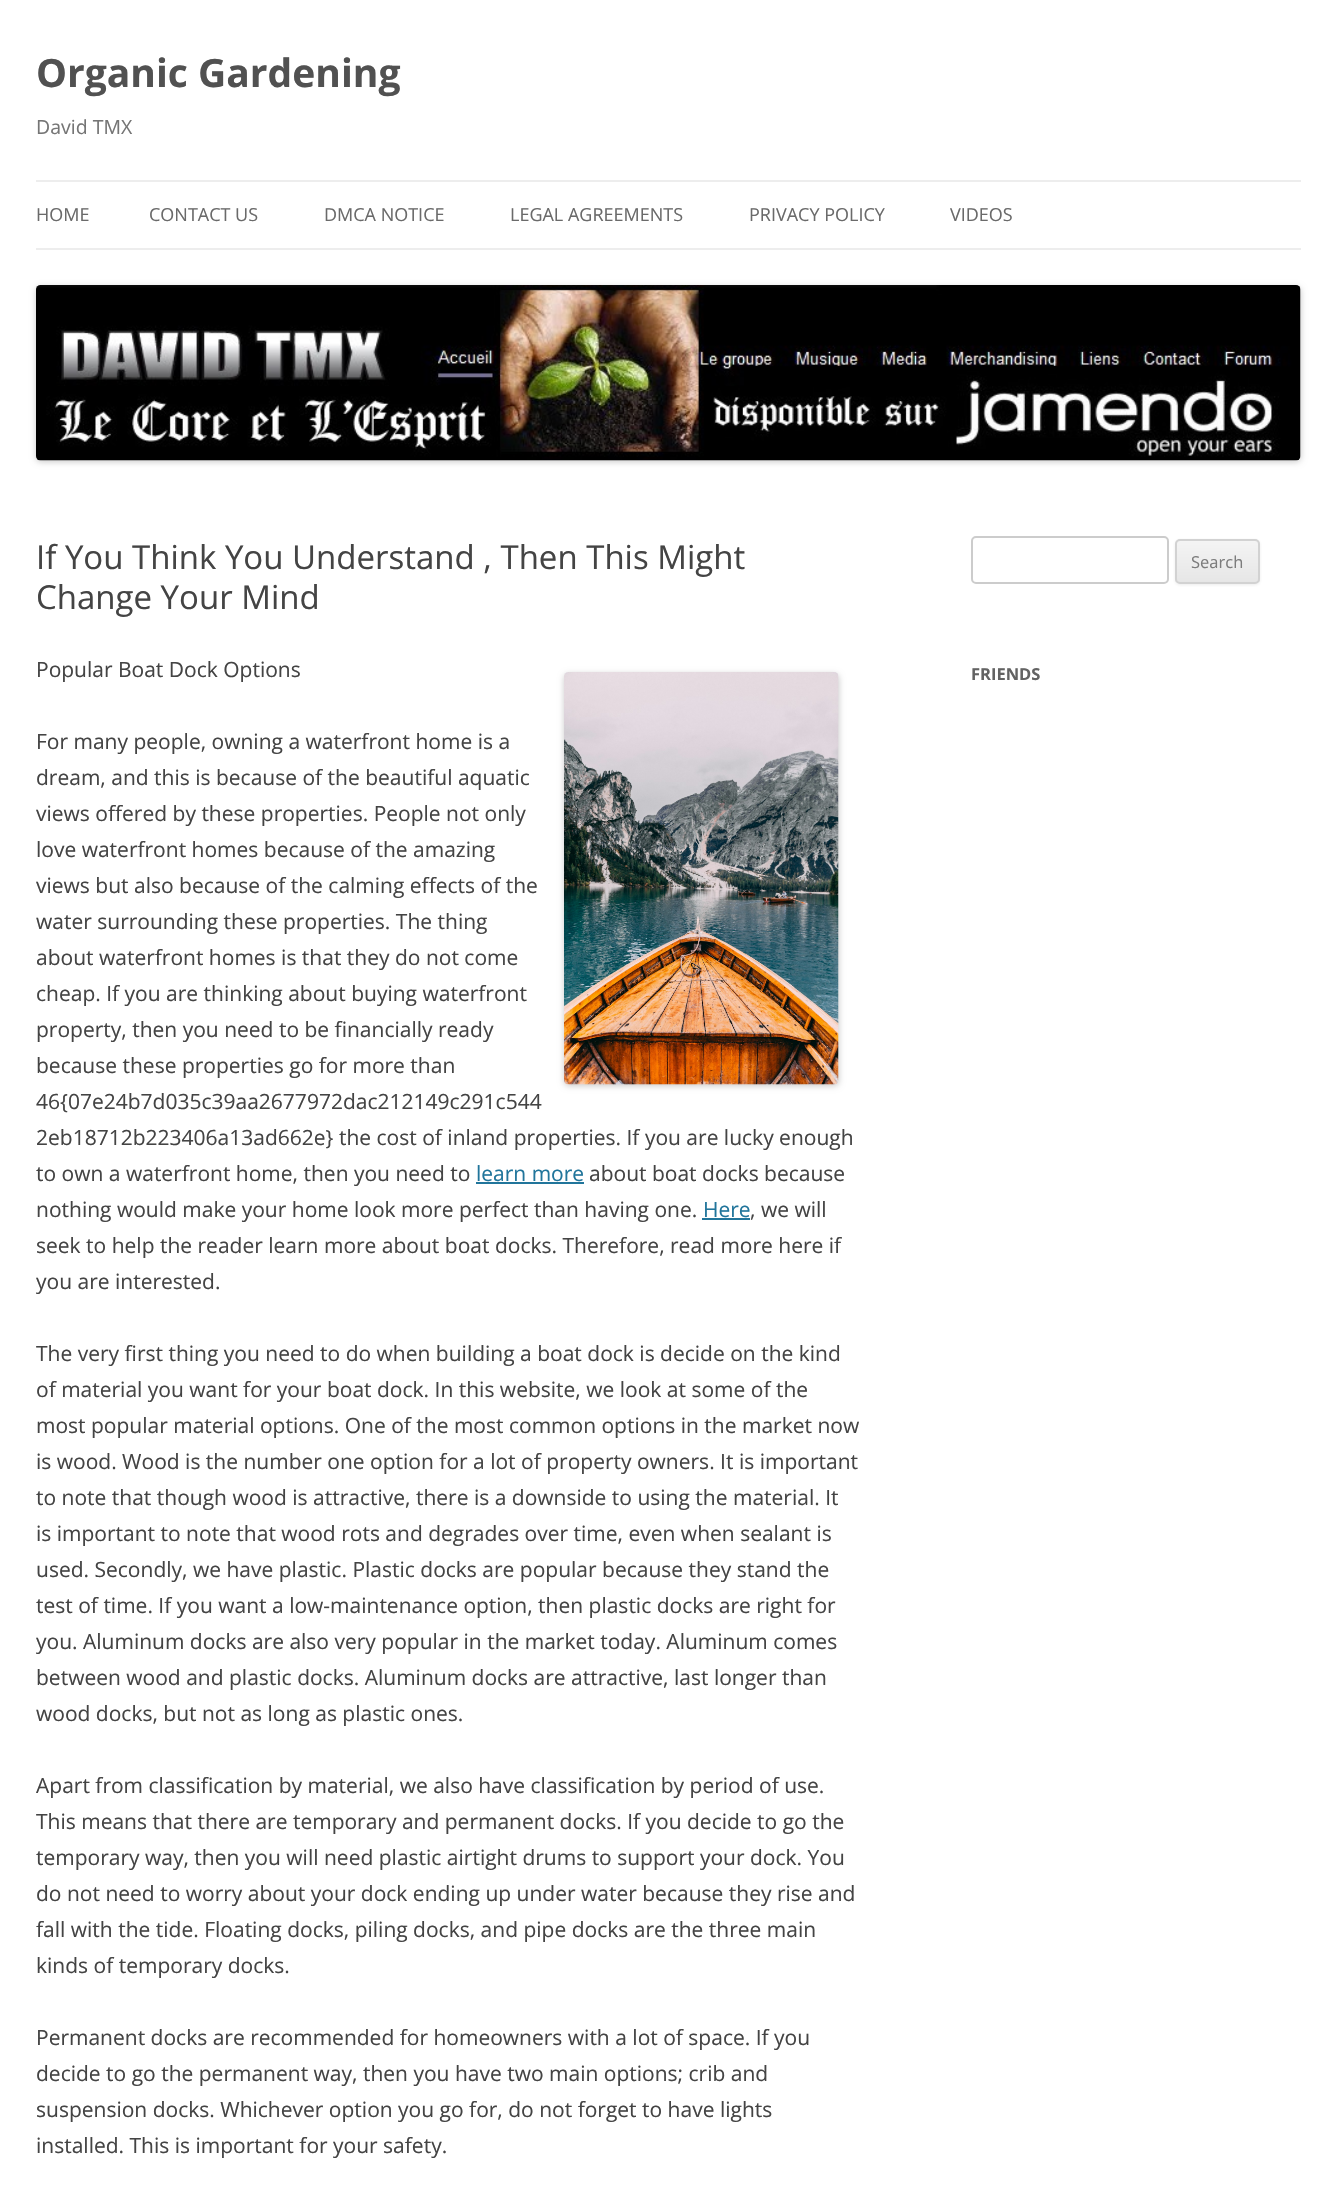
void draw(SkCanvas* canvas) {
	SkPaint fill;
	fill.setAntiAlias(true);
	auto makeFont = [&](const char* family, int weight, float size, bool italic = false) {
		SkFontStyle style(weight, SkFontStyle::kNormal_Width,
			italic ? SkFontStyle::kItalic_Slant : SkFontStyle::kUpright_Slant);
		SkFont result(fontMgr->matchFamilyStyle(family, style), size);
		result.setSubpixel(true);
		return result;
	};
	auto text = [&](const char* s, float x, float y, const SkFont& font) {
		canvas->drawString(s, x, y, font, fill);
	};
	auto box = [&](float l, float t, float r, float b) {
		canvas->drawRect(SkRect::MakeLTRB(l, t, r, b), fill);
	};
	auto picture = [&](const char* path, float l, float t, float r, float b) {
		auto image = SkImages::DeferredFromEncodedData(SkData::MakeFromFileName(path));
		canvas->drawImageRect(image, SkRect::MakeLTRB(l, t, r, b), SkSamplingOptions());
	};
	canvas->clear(0xFFFFFFFF);
	fill.setColor(0xFFEDEDED);
	box(36, 180, 1301, 182);
	box(36, 248, 1301, 250);
	fill.setColor(0x33000000);
	fill.setMaskFilter(SkMaskFilter::MakeBlur(kNormal_SkBlurStyle, 3));
	canvas->drawRoundRect(SkRect::MakeLTRB(36, 287, 1301, 462), 5, 5, fill);
	fill.setMaskFilter(nullptr);
	picture("image0.png", 36, 285, 1301, 461);
	fill.setMaskFilter(SkMaskFilter::MakeBlur(kNormal_SkBlurStyle, 3));
	canvas->drawRoundRect(SkRect::MakeLTRB(564, 674, 839, 1086), 5, 5, fill);
	fill.setMaskFilter(nullptr);
	picture("image1.png", 564, 672, 839, 1085);
	fill.setColor(0xFF21759B);
	box(476, 1182, 584, 1184);
	box(702, 1218, 750, 1220);
	fill.setStyle(SkPaint::kStroke_Style);
	fill.setStrokeWidth(2);
	fill.setColor(0xFFCCCCCC);
	canvas->drawRoundRect(SkRect::MakeLTRB(972, 537, 1168, 583), 4, 4, fill);
	fill.setStyle(SkPaint::kFill_Style);
	fill.setColor(0x1A404040);
	fill.setMaskFilter(SkMaskFilter::MakeBlur(kNormal_SkBlurStyle, 1.5f));
	canvas->drawRoundRect(SkRect::MakeLTRB(1175, 540, 1260, 585), 5, 5, fill);
	fill.setMaskFilter(nullptr);
	canvas->save();
	canvas->clipPath(SkPathBuilder().moveTo(1180, 539).lineTo(1255, 539).cubicTo(1258, 539, 1260, 541, 1260, 544).lineTo(1260, 579).cubicTo(1260, 582, 1258, 584, 1255, 584).lineTo(1180, 584).cubicTo(1177, 584, 1175, 582, 1175, 579).lineTo(1175, 544).cubicTo(1175, 541, 1177, 539, 1180, 539).close().detach(), true);
	{
		const SkColor colors[] = {0xFFF4F4F4, 0xFFE6E6E6};
		const float stops[] = {0, 1};
		const SkPoint ends[] = {{1217, 540}, {1217, 582}};
		fill.setShader(SkGradientShader::MakeLinear(ends, colors, stops, 2, SkTileMode::kClamp));
		fill.setAlpha(255);
	}
	box(1175, 540, 1260, 582);
	canvas->restore();
	fill.setStyle(SkPaint::kStroke_Style);
	fill.setShader(nullptr);
	fill.setColor(0xFFD2D2D2);
	canvas->drawRoundRect(SkRect::MakeLTRB(1176, 540, 1259, 583), 4, 4, fill);
	auto font1 = makeFont("Open Sans", 700, 39);
	fill.setStyle(SkPaint::kFill_Style);
	fill.setColor(0xFF515151);
	text("Organic Gardening", 36, 87, font1);
	auto font2 = makeFont("Open Sans", 400, 19.5f);
	fill.setColor(0xFF757575);
	text("David TMX", 36, 134, font2);
	auto font3 = makeFont("Open Sans", 400, 18);
	fill.setColor(0xFF6A6A6A);
	text("HOME", 36, 221, font3);
	text("CONTACT US", 149, 221, font3);
	text("DMCA NOTICE", 324, 221, font3);
	text("LEGAL AGREEMENTS", 510, 221, font3);
	text("PRIVACY POLICY", 749, 221, font3);
	text("VIDEOS", 950, 221, font3);
	auto font4 = makeFont("Open Sans", 400, 33);
	fill.setColor(0xFF444444);
	text("If You Think You Understand , Then This Might", 36, 569, font4);
	text("Change Your Mind", 36, 609, font4);
	auto font5 = makeFont("Open Sans", 400, 21);
	text("Popular Boat Dock Options", 36, 677, font5);
	text("For many people, owning a waterfront home is a", 36, 749, font5);
	text("dream, and this is because of the beautiful aquatic", 36, 785, font5);
	text("views offered by these properties. People not only", 36, 821, font5);
	text("love waterfront homes because of the amazing", 36, 857, font5);
	text("views but also because of the calming effects of the", 36, 893, font5);
	text("water surrounding these properties. The thing", 36, 929, font5);
	text("about waterfront homes is that they do not come", 36, 965, font5);
	text("cheap. If you are thinking about buying waterfront", 36, 1001, font5);
	text("property, then you need to be financially ready", 36, 1037, font5);
	text("because these properties go for more than", 36, 1073, font5);
	text("46{07e24b7d035c39aa2677972dac212149c291c544", 36, 1109, font5);
	text("2eb18712b223406a13ad662e} the cost of inland properties. If you are lucky enough", 36, 1145, font5);
	text("to own a waterfront home, then you need to", 36, 1181, font5);
	fill.setColor(0xFF21759B);
	text("learn more", 476, 1181, font5);
	fill.setColor(0xFF444444);
	text("about boat docks because", 589, 1181, font5);
	text("nothing would make your home look more perfect than having one.", 36, 1217, font5);
	fill.setColor(0xFF21759B);
	text("Here", 703, 1217, font5);
	fill.setColor(0xFF444444);
	text(", we will", 750, 1217, font5);
	text("seek to help the reader learn more about boat docks. Therefore, read more here if", 36, 1253, font5);
	text("you are interested.", 36, 1289, font5);
	text("The very first thing you need to do when building a boat dock is decide on the kind", 36, 1361, font5);
	text("of material you want for your boat dock. In this website, we look at some of the", 36, 1397, font5);
	text("most popular material options. One of the most common options in the market now", 36, 1433, font5);
	text("is wood. Wood is the number one option for a lot of property owners. It is important", 36, 1469, font5);
	text("to note that though wood is attractive, there is a downside to using the material. It", 36, 1505, font5);
	text("is important to note that wood rots and degrades over time, even when sealant is", 36, 1541, font5);
	text("used. Secondly, we have plastic. Plastic docks are popular because they stand the", 36, 1577, font5);
	text("test of time. If you want a low-maintenance option, then plastic docks are right for", 36, 1613, font5);
	text("you. Aluminum docks are also very popular in the market today. Aluminum comes", 36, 1649, font5);
	text("between wood and plastic docks. Aluminum docks are attractive, last longer than", 36, 1685, font5);
	text("wood docks, but not as long as plastic ones.", 36, 1721, font5);
	text("Apart from classification by material, we also have classification by period of use.", 36, 1793, font5);
	text("This means that there are temporary and permanent docks. If you decide to go the", 36, 1829, font5);
	text("temporary way, then you will need plastic airtight drums to support your dock. You", 36, 1865, font5);
	text("do not need to worry about your dock ending up under water because they rise and", 36, 1901, font5);
	text("fall with the tide. Floating docks, piling docks, and pipe docks are the three main", 36, 1937, font5);
	text("kinds of temporary docks.", 36, 1973, font5);
	text("Permanent docks are recommended for homeowners with a lot of space. If you", 36, 2045, font5);
	text("decide to go the permanent way, then you have two main options; crib and", 36, 2081, font5);
	text("suspension docks. Whichever option you go for, do not forget to have lights", 36, 2117, font5);
	text("installed. This is important for your safety.", 36, 2153, font5);
	auto font6 = makeFont("Open Sans", 400, 16.5f);
	fill.setColor(0xFF7C7C7C);
	text("Search", 1191, 568, font6);
	auto font7 = makeFont("Open Sans", 700, 16.5f);
	fill.setColor(0xFF636363);
	text("FRIENDS", 971, 680, font7);
}
